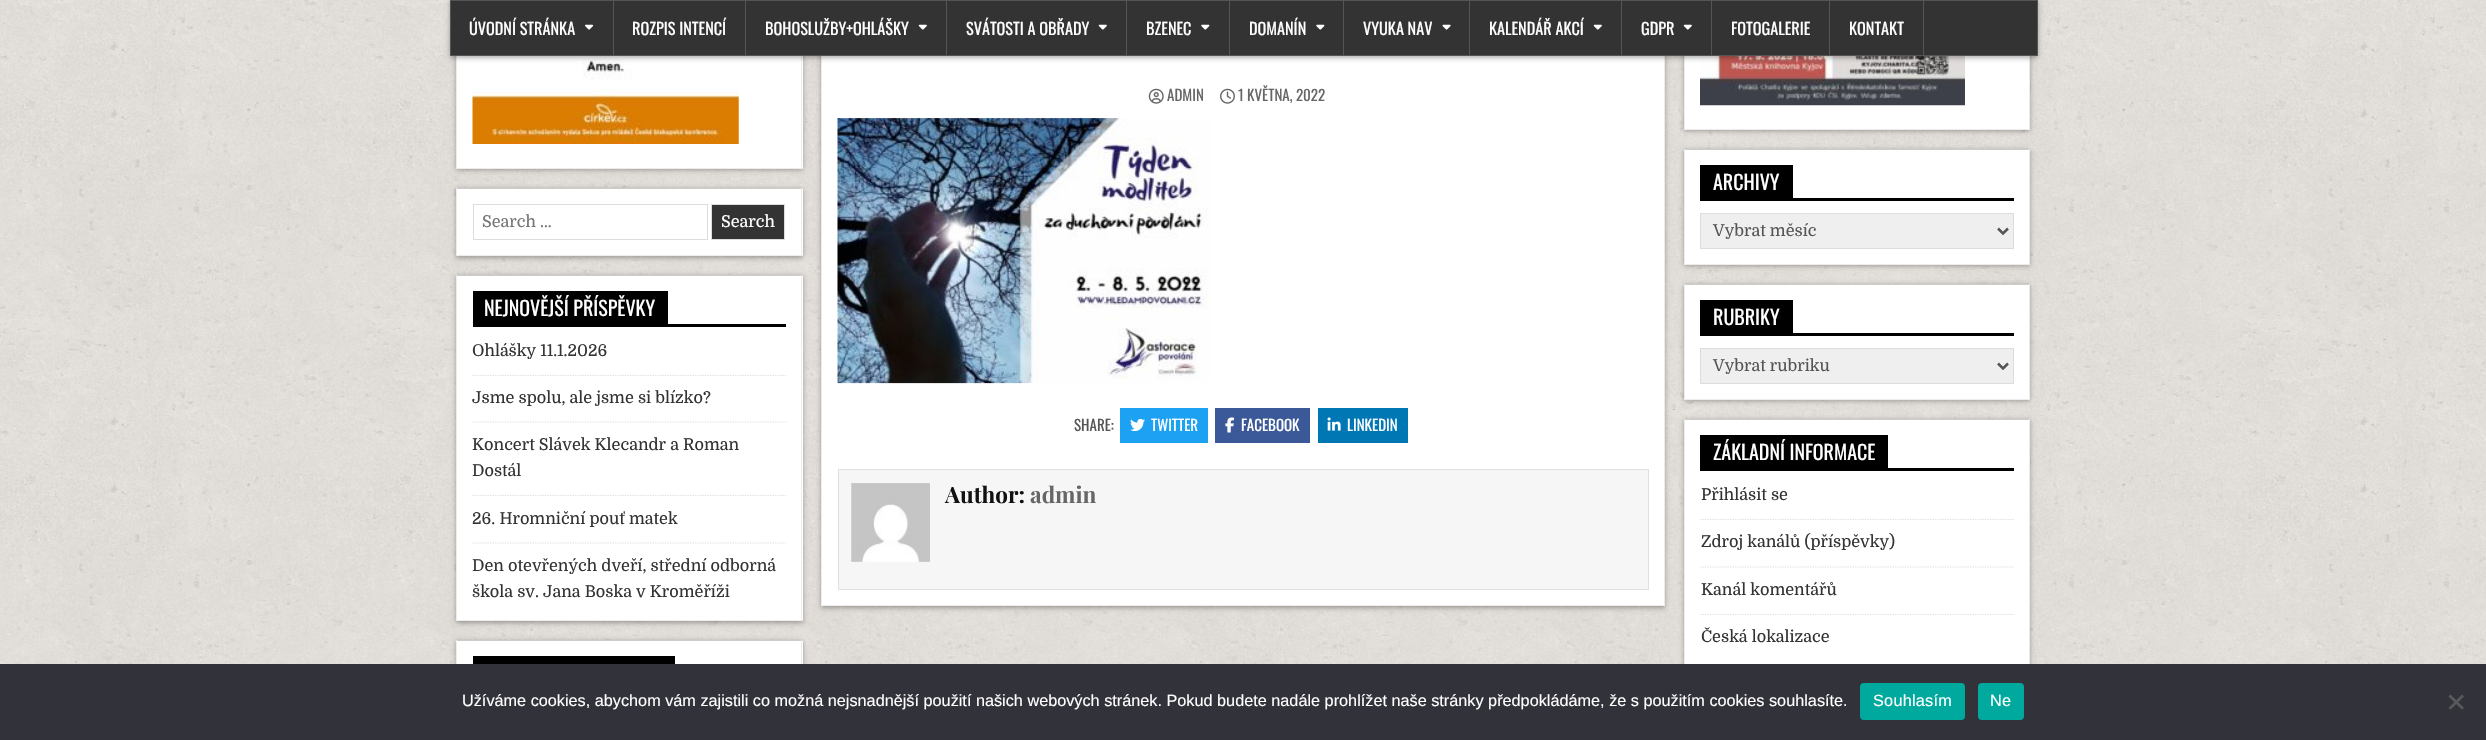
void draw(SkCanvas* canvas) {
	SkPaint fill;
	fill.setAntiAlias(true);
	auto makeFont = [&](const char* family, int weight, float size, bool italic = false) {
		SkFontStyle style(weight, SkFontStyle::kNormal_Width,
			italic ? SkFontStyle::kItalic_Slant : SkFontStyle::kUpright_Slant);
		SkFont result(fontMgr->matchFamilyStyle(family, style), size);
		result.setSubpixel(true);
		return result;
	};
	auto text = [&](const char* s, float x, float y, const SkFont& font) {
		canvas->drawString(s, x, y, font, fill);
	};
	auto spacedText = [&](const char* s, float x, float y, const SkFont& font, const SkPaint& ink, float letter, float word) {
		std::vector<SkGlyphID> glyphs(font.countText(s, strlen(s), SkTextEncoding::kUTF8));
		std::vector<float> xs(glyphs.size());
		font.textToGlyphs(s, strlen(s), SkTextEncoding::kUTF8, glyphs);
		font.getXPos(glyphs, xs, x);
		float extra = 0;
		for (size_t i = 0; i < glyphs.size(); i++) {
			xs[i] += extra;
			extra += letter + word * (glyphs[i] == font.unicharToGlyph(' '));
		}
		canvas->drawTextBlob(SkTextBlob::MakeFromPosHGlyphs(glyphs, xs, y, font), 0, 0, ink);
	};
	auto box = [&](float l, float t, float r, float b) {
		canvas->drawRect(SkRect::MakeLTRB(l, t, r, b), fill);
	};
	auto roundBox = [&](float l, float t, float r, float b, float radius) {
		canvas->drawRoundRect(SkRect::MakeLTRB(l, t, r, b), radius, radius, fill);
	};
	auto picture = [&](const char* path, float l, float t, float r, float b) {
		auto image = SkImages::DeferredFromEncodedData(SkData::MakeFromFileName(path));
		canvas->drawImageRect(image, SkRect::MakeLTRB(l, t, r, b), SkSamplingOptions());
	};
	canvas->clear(0xFFFFFFFF);
	picture("image0.png", 0, 0, 2486, 664);
	fill.setColor(0x4D000000);
	fill.setMaskFilter(SkMaskFilter::MakeBlur(kNormal_SkBlurStyle, 2.5f));
	canvas->drawRect(SkRect::MakeLTRB(456, -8, 803, 170), fill);
	fill.setMaskFilter(nullptr);
	fill.setColor(0xFFFFFFFF);
	box(457, 56, 803, 168);
	fill.setColor(0xFFECECEC);
	box(801, 56, 802, 169);
	box(456, 168, 803, 169);
	box(456, 56, 457, 169);
	picture("image5.png", 472, 56, 739, 144);
	fill.setColor(0x4D000000);
	fill.setMaskFilter(SkMaskFilter::MakeBlur(kNormal_SkBlurStyle, 2.5f));
	canvas->drawRect(SkRect::MakeLTRB(821, -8, 1665, 608), fill);
	fill.setMaskFilter(nullptr);
	fill.setColor(0xFFFFFFFF);
	box(822, 56, 1664, 605);
	fill.setColor(0xFFECECEC);
	box(1664, 56, 1665, 606);
	box(821, 605, 1665, 606);
	box(821, 56, 822, 606);
	fill.setColor(0x4D000000);
	fill.setMaskFilter(SkMaskFilter::MakeBlur(kNormal_SkBlurStyle, 2.5f));
	canvas->drawRect(SkRect::MakeLTRB(1684, -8, 2030, 131), fill);
	fill.setMaskFilter(nullptr);
	fill.setColor(0xFFFFFFFF);
	box(1685, 56, 2029, 129);
	fill.setColor(0xFFECECEC);
	box(2029, 56, 2030, 130);
	box(1684, 129, 2030, 130);
	box(1684, 56, 1685, 130);
	picture("image13.png", 1700, 56, 1965, 106);
	fill.setColor(0x4D000000);
	fill.setMaskFilter(SkMaskFilter::MakeBlur(kNormal_SkBlurStyle, 2.5f));
	canvas->drawRect(SkRect::MakeLTRB(450, 1, 2038, 58), fill);
	fill.setMaskFilter(nullptr);
	fill.setColor(0xFF333333);
	canvas->drawRect(SkRect::MakeLTRB(450.5f, 0.5f, 2037.5f, 55.5f), fill);
	fill.setStyle(SkPaint::kStroke_Style);
	fill.setStrokeWidth(1);
	fill.setColor(0xFF555555);
	canvas->drawRect(SkRect::MakeLTRB(450.5f, 0.5f, 2037.5f, 55.5f), fill);
	fill.setStyle(SkPaint::kFill_Style);
	box(613, 1, 614, 55);
	picture("image1.png", 585, 24, 594, 30);
	box(745, 1, 746, 55);
	box(946, 1, 947, 55);
	picture("image2.png", 918, 24, 927, 30);
	box(1126, 1, 1127, 55);
	picture("image2.png", 1098, 24, 1107, 30);
	box(1229, 1, 1230, 55);
	picture("image3.png", 1201, 24, 1210, 30);
	box(1343, 1, 1344, 55);
	picture("image3.png", 1316, 24, 1325, 30);
	box(1469, 1, 1470, 55);
	picture("image4.png", 1442, 24, 1451, 30);
	box(1621, 1, 1622, 55);
	picture("image2.png", 1593, 24, 1602, 30);
	box(1711, 1, 1712, 55);
	picture("image2.png", 1683, 24, 1692, 30);
	box(1829, 1, 1830, 55);
	box(1923, 1, 1924, 55);
	fill.setColor(0x4D000000);
	fill.setMaskFilter(SkMaskFilter::MakeBlur(kNormal_SkBlurStyle, 2.5f));
	canvas->drawRect(SkRect::MakeLTRB(456, 189, 803, 258), fill);
	fill.setMaskFilter(nullptr);
	fill.setColor(0xFFFFFFFF);
	box(457, 189, 803, 255);
	fill.setColor(0xFFCCCCCC);
	box(456, 188, 803, 189);
	fill.setColor(0xFFECECEC);
	box(801, 188, 802, 256);
	box(456, 255, 803, 256);
	box(456, 188, 457, 256);
	fill.setStyle(SkPaint::kStroke_Style);
	fill.setColor(0xFFDDDDDD);
	canvas->drawRect(SkRect::MakeLTRB(473.5f, 204.5f, 707.5f, 239.5f), fill);
	fill.setStyle(SkPaint::kFill_Style);
	fill.setColor(0xFF333333);
	canvas->drawRect(SkRect::MakeLTRB(711.5f, 204.5f, 784.5f, 239.5f), fill);
	fill.setStyle(SkPaint::kStroke_Style);
	fill.setColor(0xFFDDDDDD);
	canvas->drawRect(SkRect::MakeLTRB(711.5f, 204.5f, 784.5f, 239.5f), fill);
	fill.setStyle(SkPaint::kFill_Style);
	fill.setColor(0x4D000000);
	fill.setMaskFilter(SkMaskFilter::MakeBlur(kNormal_SkBlurStyle, 2.5f));
	canvas->drawRect(SkRect::MakeLTRB(456, 276, 803, 623), fill);
	fill.setMaskFilter(nullptr);
	fill.setColor(0xFFFFFFFF);
	box(457, 276, 803, 620);
	fill.setColor(0xFFCCCCCC);
	box(456, 275, 803, 276);
	fill.setColor(0xFFECECEC);
	box(801, 275, 802, 621);
	box(456, 620, 803, 621);
	box(456, 275, 457, 621);
	fill.setColor(0xFF000000);
	box(473, 324, 786, 327);
	box(473, 291, 668, 324);
	fill.setStyle(SkPaint::kStroke_Style);
	fill.setStrokeWidth(1.2f);
	fill.setColor(0xFFDDDDDD);
	fill.setPathEffect(SkDashPathEffect::Make({{1.25f, 1.25f}}, 0));
	canvas->drawPath(SkPathBuilder().moveTo(472.5f, 375.5f).lineTo(786, 375.5f).detach(), fill);
	fill.setPathEffect(nullptr);
	fill.setPathEffect(SkDashPathEffect::Make({{1.25f, 1.25f}}, 0));
	canvas->drawPath(SkPathBuilder().moveTo(472.5f, 422).lineTo(786, 422).detach(), fill);
	fill.setPathEffect(nullptr);
	fill.setPathEffect(SkDashPathEffect::Make({{1.25f, 1.25f}}, 0));
	canvas->drawPath(SkPathBuilder().moveTo(472.5f, 495.5f).lineTo(786, 495.5f).detach(), fill);
	fill.setPathEffect(nullptr);
	fill.setPathEffect(SkDashPathEffect::Make({{1.25f, 1.25f}}, 0));
	canvas->drawPath(SkPathBuilder().moveTo(472.5f, 543).lineTo(786, 543).detach(), fill);
	fill.setPathEffect(nullptr);
	fill.setStyle(SkPaint::kFill_Style);
	fill.setColor(0x4D000000);
	fill.setMaskFilter(SkMaskFilter::MakeBlur(kNormal_SkBlurStyle, 2.5f));
	canvas->drawRect(SkRect::MakeLTRB(456, 641, 803, 721), fill);
	fill.setMaskFilter(nullptr);
	fill.setColor(0xFFFFFFFF);
	box(457, 641, 803, 664);
	fill.setColor(0xFFCCCCCC);
	box(456, 640, 803, 641);
	fill.setColor(0xFFECECEC);
	box(801, 640, 802, 664);
	box(456, 640, 457, 664);
	fill.setColor(0xFF000000);
	box(473, 656, 675, 664);
	picture("image6.png", 1148, 88, 1164, 104);
	picture("image7.png", 1220, 88, 1235, 104);
	picture("image8.png", 837, 118, 1210, 384);
	fill.setColor(0xFF1DA1F2);
	box(1120, 408, 1208, 443);
	picture("image9.png", 1130, 418, 1145, 432);
	fill.setColor(0xFF3B5998);
	box(1215, 408, 1310, 443);
	picture("image10.png", 1225, 417, 1234, 433);
	fill.setColor(0xFF0077B5);
	box(1318, 408, 1408, 443);
	picture("image11.png", 1327, 417, 1341, 431);
	fill.setColor(0xFFF6F6F6);
	canvas->drawRect(SkRect::MakeLTRB(838.5f, 469.5f, 1648.5f, 589.5f), fill);
	fill.setStyle(SkPaint::kStroke_Style);
	fill.setStrokeWidth(1);
	fill.setColor(0xFFE0E0E0);
	canvas->drawRect(SkRect::MakeLTRB(838.5f, 469.5f, 1648.5f, 589.5f), fill);
	picture("image12.png", 851, 483, 930, 562);
	fill.setStyle(SkPaint::kFill_Style);
	fill.setColor(0x4D000000);
	fill.setMaskFilter(SkMaskFilter::MakeBlur(kNormal_SkBlurStyle, 2.5f));
	canvas->drawRect(SkRect::MakeLTRB(1684, 150, 2030, 266), fill);
	fill.setMaskFilter(nullptr);
	fill.setColor(0xFFFFFFFF);
	box(1685, 150, 2029, 264);
	fill.setColor(0xFFCCCCCC);
	box(1684, 149, 2030, 150);
	fill.setColor(0xFFECECEC);
	box(2029, 149, 2030, 265);
	box(1684, 264, 2030, 265);
	box(1684, 149, 1685, 265);
	fill.setColor(0xFF000000);
	box(1700, 198, 2014, 201);
	box(1700, 165, 1793, 198);
	fill.setColor(0xFFEFEFEF);
	canvas->drawRect(SkRect::MakeLTRB(1700.5f, 213.5f, 2013.5f, 248.5f), fill);
	fill.setStyle(SkPaint::kStroke_Style);
	fill.setColor(0xFFDDDDDD);
	canvas->drawRect(SkRect::MakeLTRB(1700.5f, 213.5f, 2013.5f, 248.5f), fill);
	fill.setStrokeWidth(2.5f);
	fill.setColor(0xFF555555);
	canvas->drawPath(SkPathBuilder().moveTo(1998, 228.5f).lineTo(2003, 233.5f).lineTo(2008, 228.5f).detach(), fill);
	fill.setStyle(SkPaint::kFill_Style);
	fill.setColor(0x4D000000);
	fill.setMaskFilter(SkMaskFilter::MakeBlur(kNormal_SkBlurStyle, 2.5f));
	canvas->drawRect(SkRect::MakeLTRB(1684, 285, 2030, 401), fill);
	fill.setMaskFilter(nullptr);
	fill.setColor(0xFFFFFFFF);
	box(1685, 285, 2029, 399);
	fill.setColor(0xFFCCCCCC);
	box(1684, 284, 2030, 285);
	fill.setColor(0xFFECECEC);
	box(2029, 284, 2030, 400);
	box(1684, 399, 2030, 400);
	box(1684, 284, 1685, 400);
	fill.setColor(0xFF000000);
	box(1700, 333, 2014, 336);
	box(1700, 300, 1793, 333);
	fill.setColor(0xFFEFEFEF);
	canvas->drawRect(SkRect::MakeLTRB(1700.5f, 348.5f, 2013.5f, 383.5f), fill);
	fill.setStyle(SkPaint::kStroke_Style);
	fill.setStrokeWidth(1);
	fill.setColor(0xFFDDDDDD);
	canvas->drawRect(SkRect::MakeLTRB(1700.5f, 348.5f, 2013.5f, 383.5f), fill);
	fill.setStrokeWidth(2.5f);
	fill.setColor(0xFF555555);
	canvas->drawPath(SkPathBuilder().moveTo(1998, 363.5f).lineTo(2003, 368.5f).lineTo(2008, 363.5f).detach(), fill);
	fill.setStyle(SkPaint::kFill_Style);
	fill.setColor(0x4D000000);
	fill.setMaskFilter(SkMaskFilter::MakeBlur(kNormal_SkBlurStyle, 2.5f));
	canvas->drawRect(SkRect::MakeLTRB(1684, 420, 2030, 668), fill);
	fill.setMaskFilter(nullptr);
	fill.setColor(0xFFFFFFFF);
	box(1685, 420, 2029, 664);
	fill.setColor(0xFFCCCCCC);
	box(1684, 419, 2030, 420);
	fill.setColor(0xFFECECEC);
	box(2029, 419, 2030, 666);
	box(1684, 419, 1685, 666);
	fill.setColor(0xFF000000);
	box(1700, 468, 2014, 471);
	box(1700, 435, 1888, 468);
	fill.setStyle(SkPaint::kStroke_Style);
	fill.setStrokeWidth(1.2f);
	fill.setColor(0xFFDDDDDD);
	fill.setPathEffect(SkDashPathEffect::Make({{1.25f, 1.25f}}, 0));
	canvas->drawPath(SkPathBuilder().moveTo(1700, 519.5f).lineTo(2014, 519.5f).detach(), fill);
	fill.setPathEffect(nullptr);
	fill.setPathEffect(SkDashPathEffect::Make({{1.25f, 1.25f}}, 0));
	canvas->drawPath(SkPathBuilder().moveTo(1700, 567).lineTo(2014, 567).detach(), fill);
	fill.setPathEffect(nullptr);
	fill.setPathEffect(SkDashPathEffect::Make({{1.25f, 1.25f}}, 0));
	canvas->drawPath(SkPathBuilder().moveTo(1700, 614.5f).lineTo(2014, 614.5f).detach(), fill);
	fill.setPathEffect(nullptr);
	fill.setStyle(SkPaint::kFill_Style);
	fill.setColor(0xFF32323A);
	box(0, 664, 2486, 740);
	fill.setColor(0xFF00A99D);
	roundBox(1860, 683, 1965, 720, 4);
	roundBox(1978, 683, 2024, 720, 4);
	fill.setColor(0xFF59595D);
	canvas->drawPath(SkPathBuilder().moveTo(2462, 694.5f).lineTo(2464, 696.5f).lineTo(2450.5f, 709.5f).lineTo(2448.5f, 708).close().detach(), fill);
	canvas->drawPath(SkPathBuilder().moveTo(2448.5f, 696.5f).lineTo(2450.5f, 694.5f).lineTo(2464, 708).lineTo(2462, 709.5f).close().detach(), fill);
	auto font1 = makeFont("Oswald", 400, 16.25f);
	fill.setColor(0xFFFFFFFF);
	text("ÚVODNÍ STRÁNKA", 469, 35, font1);
	text("ROZPIS INTENCÍ", 632, 35, font1);
	text("BOHOSLUŽBY+OHLÁŠKY", 765, 35, font1);
	text("SVÁTOSTI A OBŘADY", 966, 35, font1);
	text("BZENEC", 1146, 35, font1);
	text("DOMANÍN", 1249, 35, font1);
	text("VYUKA NAV", 1363, 35, font1);
	text("KALENDÁŘ AKCÍ", 1489, 35, font1);
	text("GDPR", 1641, 35, font1);
	text("FOTOGALERIE", 1731, 35, font1);
	text("KONTAKT", 1849, 35, font1);
	auto font2 = makeFont("Domine", 400, 16.25f);
	fill.setColor(0xFF757575);
	text("Search …", 482, 227, font2);
	fill.setColor(0xFFFFFFFF);
	text("Search", 721, 227, font2);
	auto font3 = makeFont("Oswald", 400, 20);
	text("NEJNOVĚJŠÍ PŘÍSPĚVKY", 484, 316, font3);
	fill.setColor(0xFF333333);
	text("Ohlášky 11.1.2026", 472, 356, font2);
	text("Jsme spolu, ale jsme si blízko?", 472, 403, font2);
	text("Koncert Slávek Klecandr a Roman", 472, 450, font2);
	text("Dostál", 472, 476, font2);
	text("26. Hromniční pouť matek", 472, 524, font2);
	text("Den otevřených dveří, střední odborná", 472, 571, font2);
	text("škola sv. Jana Boska v Kroměříži", 472, 597, font2);
	auto font4 = makeFont("Oswald", 400, 15);
	fill.setColor(0xFF666666);
	text("ADMIN", 1167, 101, font4);
	text("1 KVĚTNA, 2022", 1238, 101, font4);
	fill.setColor(0xFF555555);
	text("SHARE:", 1074, 431, font4);
	fill.setColor(0xFFFFFFFF);
	text("TWITTER", 1151, 431, font4);
	text("FACEBOOK", 1241, 431, font4);
	text("LINKEDIN", 1347, 431, font4);
	auto font5 = makeFont("Playfair Display", 700, 22.5f);
	fill.setColor(0xFF111111);
	text("Author:", 945, 503, font5);
	fill.setColor(0xFF666666);
	text("admin", 1030, 503, font5);
	fill.setColor(0xFFFFFFFF);
	text("ARCHIVY", 1713, 190, font3);
	fill.setColor(0xFF555555);
	text("Vybrat měsíc", 1713, 236, font2);
	fill.setColor(0xFFFFFFFF);
	text("RUBRIKY", 1713, 325, font3);
	fill.setColor(0xFF555555);
	text("Vybrat rubriku", 1713, 371, font2);
	fill.setColor(0xFFFFFFFF);
	text("ZÁKLADNÍ INFORMACE", 1713, 460, font3);
	fill.setColor(0xFF333333);
	text("Přihlásit se", 1701, 500, font2);
	text("Zdroj kanálů (příspěvky)", 1701, 547, font2);
	text("Kanál komentářů", 1701, 595, font2);
	text("Česká lokalizace", 1701, 642, font2);
	auto font6 = makeFont("Liberation Sans", 400, 16.25f);
	fill.setColor(0xFFFFFFFF);
	text("Užíváme cookies, abychom vám zajistili co možná nejsnadnější použití našich webových stránek. Pokud budete nadále prohlížet naše stránky předpokládáme, že s použitím cookies souhlasíte.", 462, 706, font6);
	spacedText("Souhlasím", 1873, 706, font6, fill, 0.25f, 0);
	spacedText("Ne", 1990, 706, font6, fill, 0.25f, 0);
}
